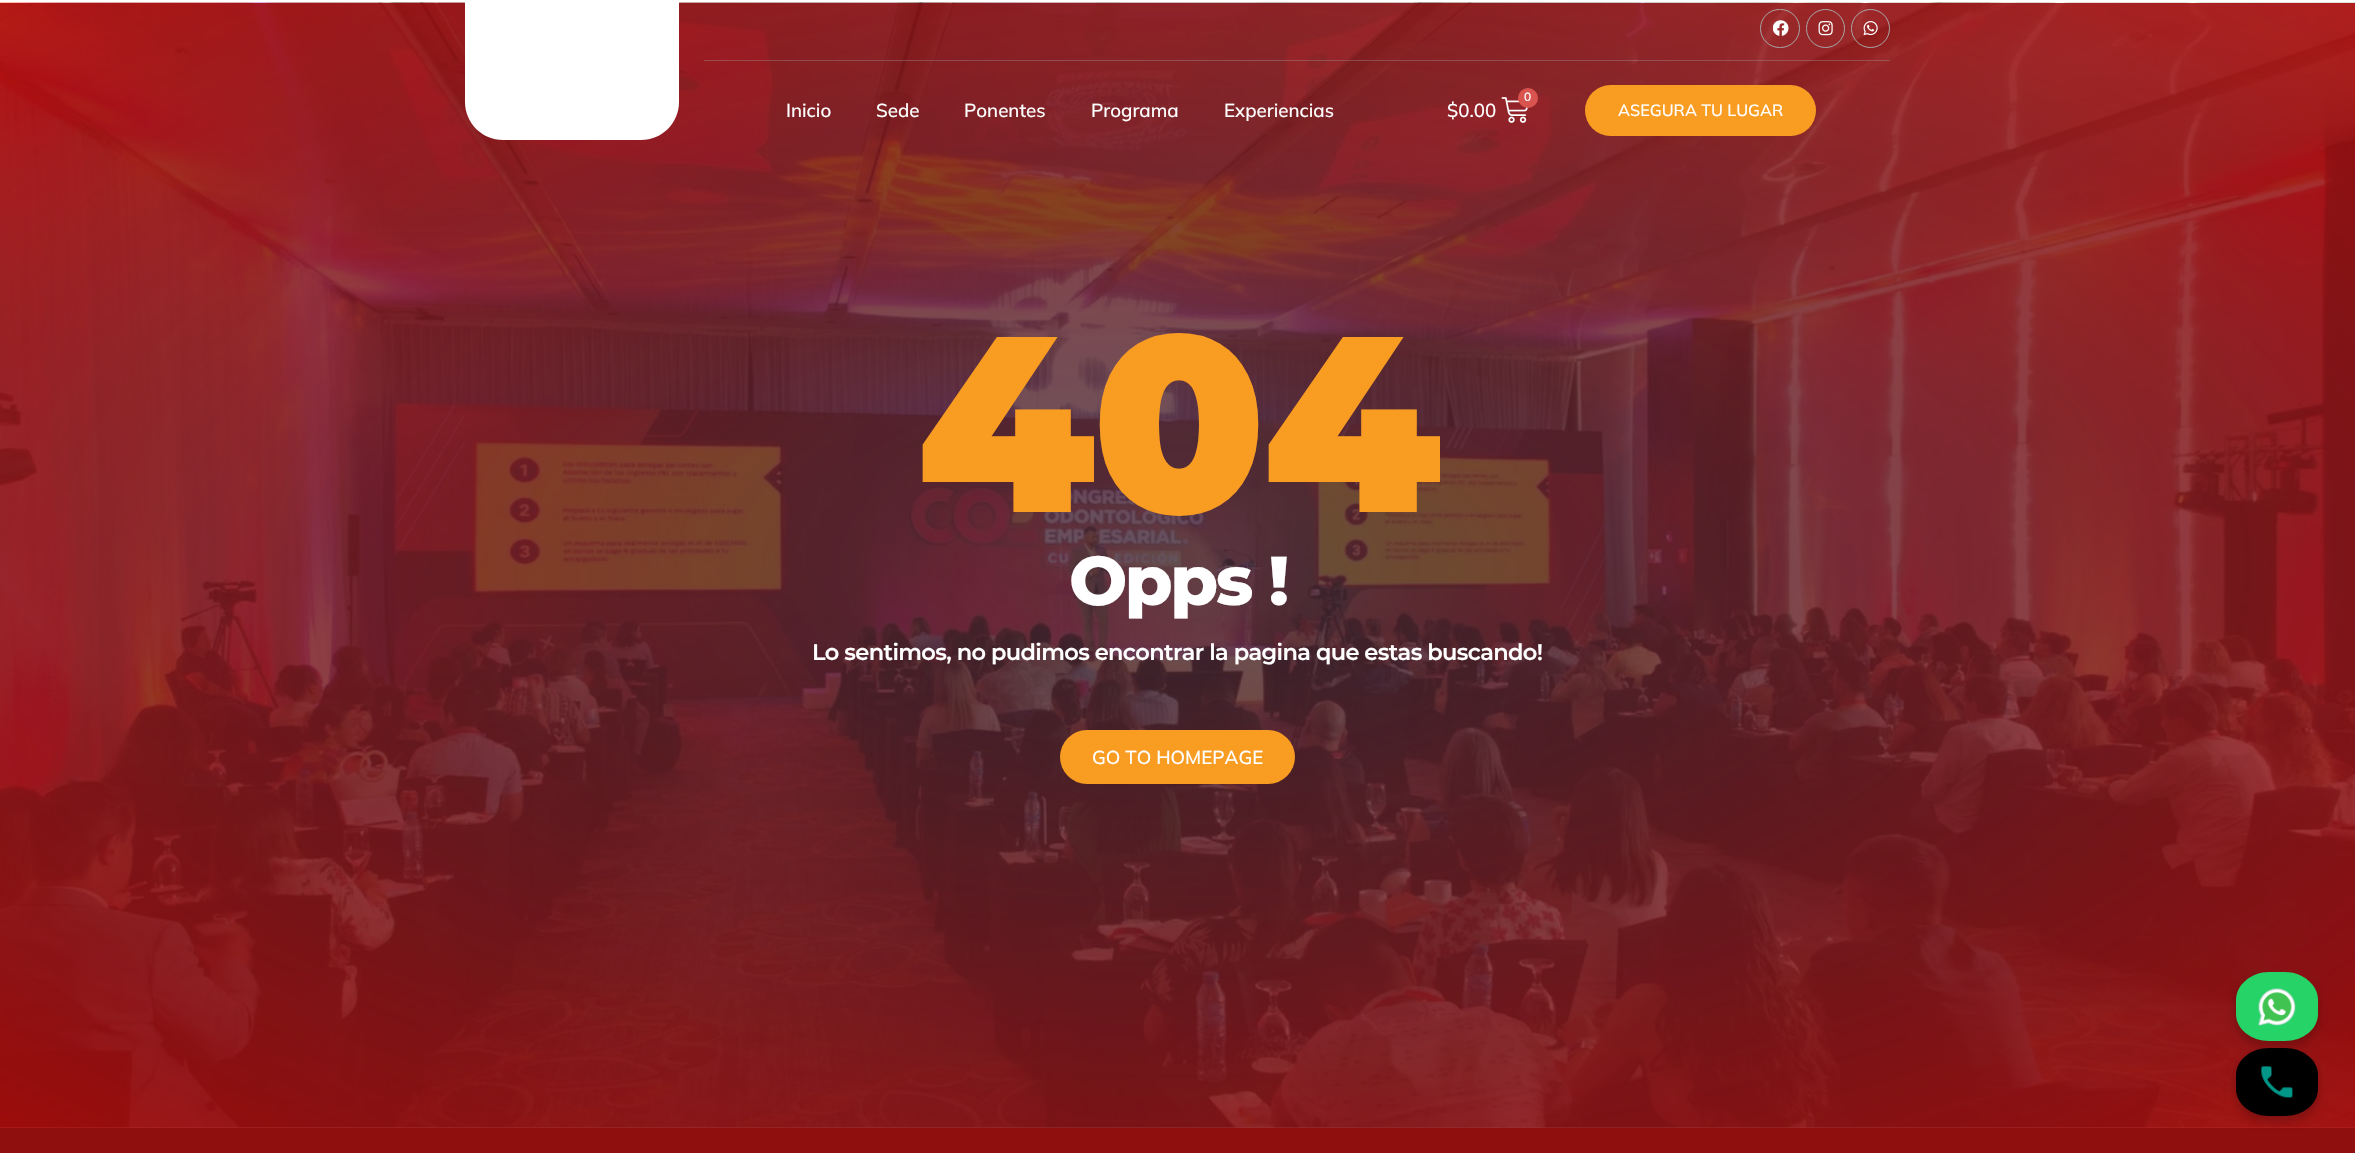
void draw(SkCanvas* canvas) {
	SkPaint fill;
	fill.setAntiAlias(true);
	auto makeFont = [&](const char* family, int weight, float size, bool italic = false) {
		SkFontStyle style(weight, SkFontStyle::kNormal_Width,
			italic ? SkFontStyle::kItalic_Slant : SkFontStyle::kUpright_Slant);
		SkFont result(fontMgr->matchFamilyStyle(family, style), size);
		result.setSubpixel(true);
		return result;
	};
	auto text = [&](const char* s, float x, float y, const SkFont& font) {
		canvas->drawString(s, x, y, font, fill);
	};
	auto spacedText = [&](const char* s, float x, float y, const SkFont& font, const SkPaint& ink, float letter, float word) {
		std::vector<SkGlyphID> glyphs(font.countText(s, strlen(s), SkTextEncoding::kUTF8));
		std::vector<float> xs(glyphs.size());
		font.textToGlyphs(s, strlen(s), SkTextEncoding::kUTF8, glyphs);
		font.getXPos(glyphs, xs, x);
		float extra = 0;
		for (size_t i = 0; i < glyphs.size(); i++) {
			xs[i] += extra;
			extra += letter + word * (glyphs[i] == font.unicharToGlyph(' '));
		}
		canvas->drawTextBlob(SkTextBlob::MakeFromPosHGlyphs(glyphs, xs, y, font), 0, 0, ink);
	};
	auto box = [&](float l, float t, float r, float b) {
		canvas->drawRect(SkRect::MakeLTRB(l, t, r, b), fill);
	};
	auto roundBox = [&](float l, float t, float r, float b, float radius) {
		canvas->drawRoundRect(SkRect::MakeLTRB(l, t, r, b), radius, radius, fill);
	};
	auto picture = [&](const char* path, float l, float t, float r, float b) {
		auto image = SkImages::DeferredFromEncodedData(SkData::MakeFromFileName(path));
		canvas->drawImageRect(image, SkRect::MakeLTRB(l, t, r, b), SkSamplingOptions());
	};
	canvas->clear(0xFFFFFFFF);
	picture("image4.png", 0, 2, 2355, 1128);
	{
		const SkColor colors[] = {0xC93A2C39, 0xE6AC0C0C};
		const float stops[] = {0, 1};
		SkMatrix m = SkMatrix::Translate(1178, 565).preScale(1665, 795);
		fill.setShader(SkGradientShader::MakeRadial({0, 0}, 1, colors, stops, 2, SkTileMode::kClamp, 0, &m));
		fill.setAlpha(255);
	}
	box(0, 3, 2355, 1128);
	fill.setShader(nullptr);
	fill.setColor(0xFFFFFFFF);
	canvas->drawPath(SkPathBuilder().moveTo(465, -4).lineTo(679, -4).lineTo(679, 102).cubicTo(679, 123, 662, 140, 641, 140).lineTo(503, 140).cubicTo(482, 140, 465, 123, 465, 102).close().detach(), fill);
	fill.setColor(0x52A7A7A7);
	box(704, 60, 1890, 61);
	fill.setStyle(SkPaint::kStroke_Style);
	fill.setStrokeWidth(1);
	fill.setColor(0xFFA6A6A6);
	canvas->drawRoundRect(SkRect::MakeLTRB(1760.5f, 9.5f, 1799.5f, 47.5f), 19, 19, fill);
	picture("image0.png", 1773, 20, 1789, 36);
	canvas->drawCircle(1825.5f, 28.5f, 19, fill);
	picture("image1.png", 1818, 21, 1833, 36);
	canvas->drawCircle(1870.5f, 28.5f, 19, fill);
	picture("image2.png", 1863, 21, 1878, 36);
	picture("image3.png", 1501, 97, 1528, 123);
	fill.setStyle(SkPaint::kFill_Style);
	fill.setColor(0xFFD9534F);
	canvas->drawCircle(1528, 98, 10, fill);
	fill.setColor(0xFFF89C22);
	roundBox(1585, 85, 1816, 136, 25.5f);
	roundBox(1060, 730, 1295, 784, 27);
	fill.setColor(0x33000000);
	fill.setMaskFilter(SkMaskFilter::MakeBlur(kNormal_SkBlurStyle, 5));
	canvas->drawRoundRect(SkRect::MakeLTRB(2236, 978, 2318, 1046), 28, 28, fill);
	fill.setMaskFilter(nullptr);
	fill.setColor(0xFF25D366);
	canvas->drawPath(SkPathBuilder().moveTo(2269, 972).lineTo(2285, 972).cubicTo(2303, 972, 2318, 985, 2318, 1000).lineTo(2318, 1014).cubicTo(2318, 1029, 2303, 1041, 2285, 1041).lineTo(2269, 1041).cubicTo(2251, 1041, 2236, 1029, 2236, 1014).lineTo(2236, 1000).cubicTo(2236, 985, 2251, 972, 2269, 972).close().detach(), fill);
	picture("image5.png", 2258, 988, 2296, 1026);
	fill.setColor(0xFF8F0E0E);
	box(0, 1128, 2355, 1153);
	fill.setColor(0x33000000);
	fill.setMaskFilter(SkMaskFilter::MakeBlur(kNormal_SkBlurStyle, 5));
	canvas->drawRoundRect(SkRect::MakeLTRB(2236, 1053, 2318, 1121), 28, 28, fill);
	fill.setMaskFilter(nullptr);
	fill.setColor(0xFF000000);
	canvas->drawPath(SkPathBuilder().moveTo(2269, 1048).lineTo(2285, 1048).cubicTo(2303, 1048, 2318, 1060, 2318, 1075).lineTo(2318, 1089).cubicTo(2318, 1104, 2303, 1116, 2285, 1116).lineTo(2269, 1116).cubicTo(2251, 1116, 2236, 1104, 2236, 1089).lineTo(2236, 1075).cubicTo(2236, 1060, 2251, 1048, 2269, 1048).close().detach(), fill);
	picture("image6.png", 2261, 1066, 2293, 1098);
	auto font1 = makeFont("Mulish", 500, 18.75f);
	fill.setColor(0xFFFFFFFF);
	text("Inicio", 786, 117, font1);
	text("Sede", 876, 117, font1);
	text("Ponentes", 964, 117, font1);
	text("Programa", 1091, 117, font1);
	text("Experiencias", 1224, 117, font1);
	auto font2 = makeFont("Mulish", 500, 12);
	text("0", 1524, 101, font2);
	text("$0.00", 1447, 117, font1);
	auto font3 = makeFont("Mulish", 500, 16.25f);
	text("ASEGURA TU LUGAR", 1618, 116, font3);
	auto font4 = makeFont("Montserrat", 900, 250);
	fill.setColor(0xFFF89C22);
	spacedText("404", 917, 512, font4, fill, -2.5f, 0);
	auto font5 = makeFont("Montserrat", 800, 69);
	fill.setColor(0xFFFFFFFF);
	spacedText("Opps !", 1069, 605, font5, fill, -2.5f, 0);
	auto font6 = makeFont("Montserrat", 600, 22.5f);
	spacedText("Lo sentimos, no pudimos encontrar la pagina que estas buscando!", 812, 660, font6, fill, -0.62f, 0);
	text("GO TO HOMEPAGE", 1092, 764, font1);
}
